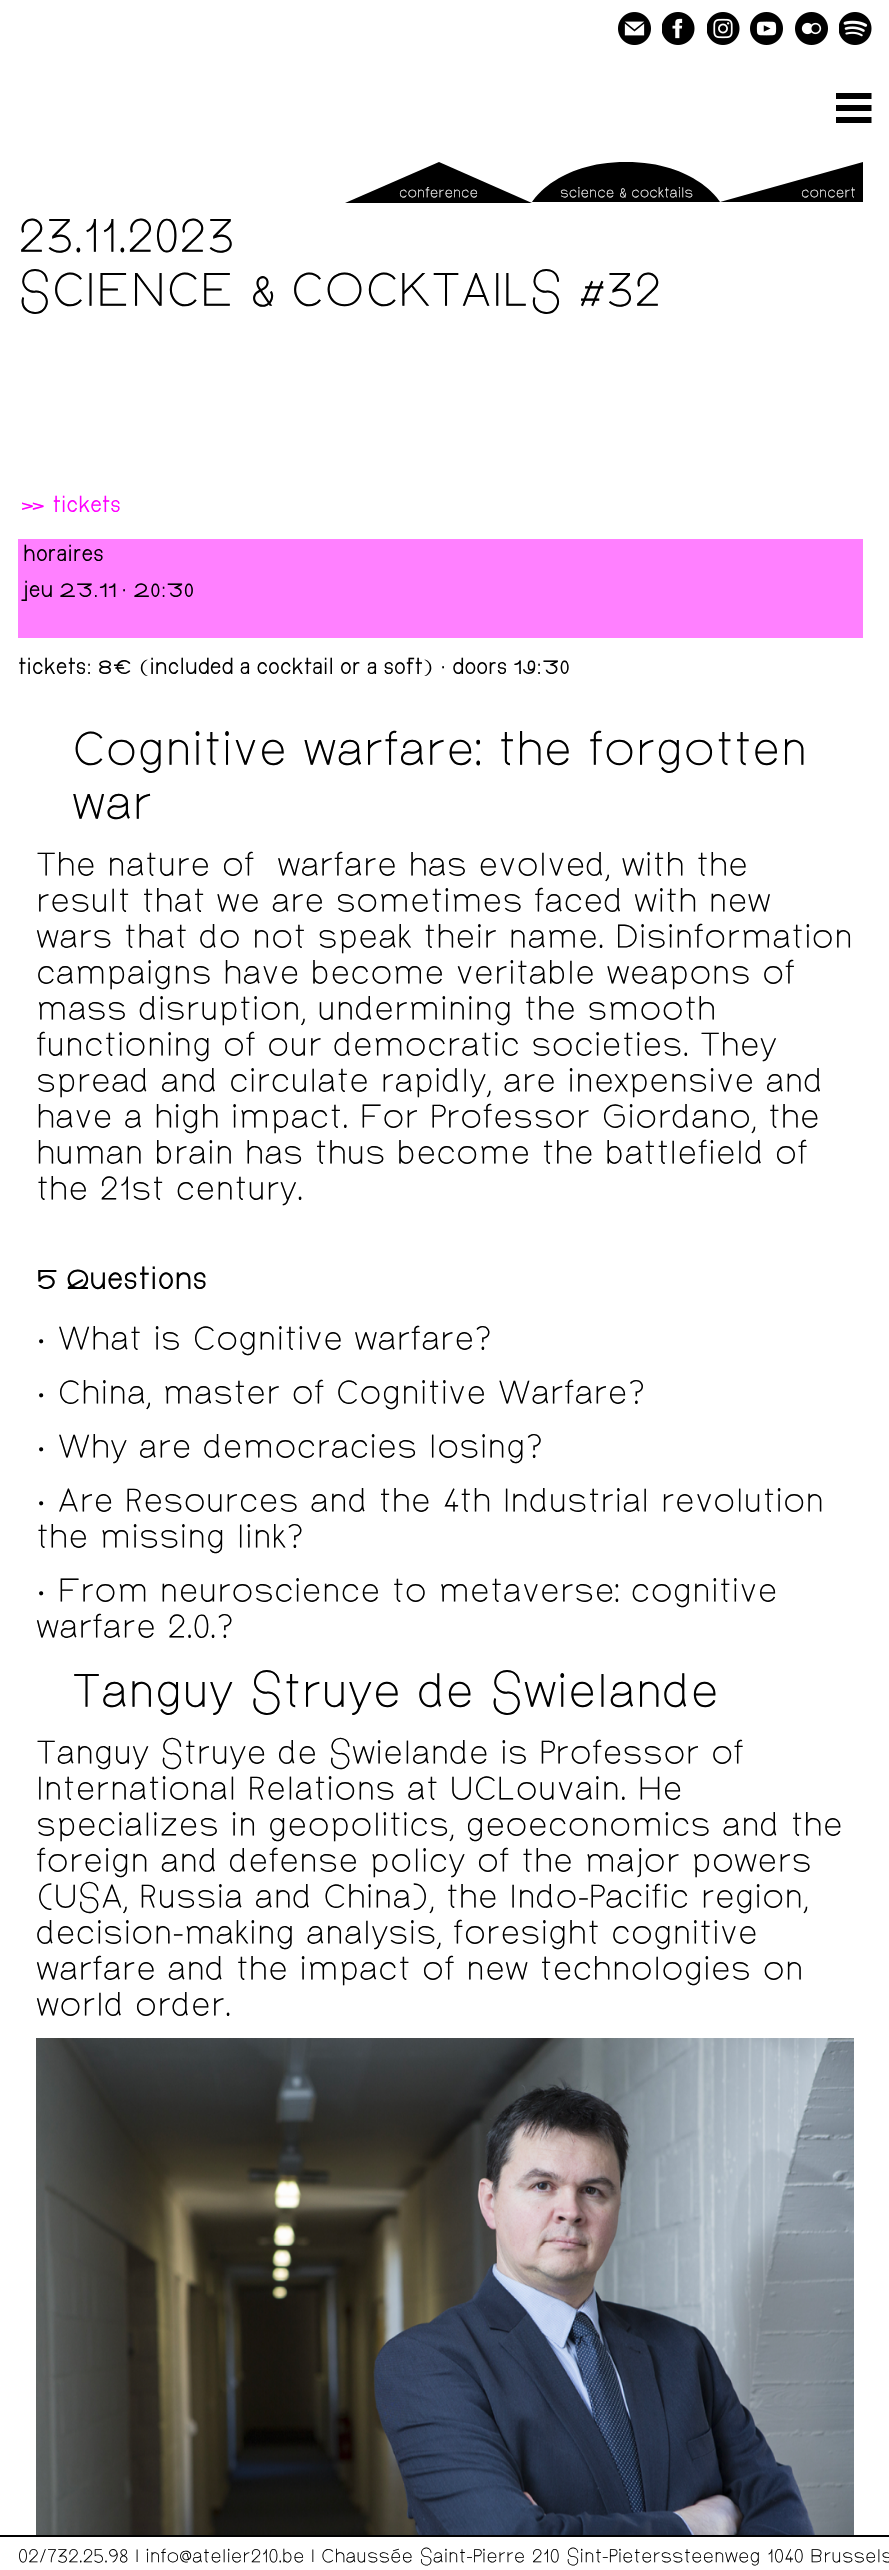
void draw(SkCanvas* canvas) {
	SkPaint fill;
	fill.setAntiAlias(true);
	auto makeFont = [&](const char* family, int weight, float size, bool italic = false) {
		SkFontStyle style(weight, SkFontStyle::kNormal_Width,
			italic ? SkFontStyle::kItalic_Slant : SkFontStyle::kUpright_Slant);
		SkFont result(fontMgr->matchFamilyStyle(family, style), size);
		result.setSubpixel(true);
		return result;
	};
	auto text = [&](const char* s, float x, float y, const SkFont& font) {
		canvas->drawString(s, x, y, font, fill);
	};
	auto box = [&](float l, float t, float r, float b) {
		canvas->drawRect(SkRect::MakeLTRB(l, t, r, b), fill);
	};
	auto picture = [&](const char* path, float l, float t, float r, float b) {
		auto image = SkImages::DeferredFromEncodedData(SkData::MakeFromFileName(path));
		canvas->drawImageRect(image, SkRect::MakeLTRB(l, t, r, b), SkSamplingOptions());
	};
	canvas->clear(0xFFFFFFFF);
	picture("image0.png", 618, 12, 651, 45);
	picture("image1.png", 662, 12, 695, 45);
	picture("image2.png", 707, 12, 740, 45);
	picture("image3.png", 750, 12, 783, 45);
	picture("image4.png", 795, 12, 828, 45);
	picture("image5.png", 839, 12, 872, 45);
	canvas->save();
	canvas->clipRect(SkRect::MakeLTRB(836, 90, 872, 126));
	fill.setColor(0xFF000000);
	canvas->drawPath(SkPathBuilder().moveTo(871.5f, 99).lineTo(835.5f, 99).lineTo(835.5f, 93).lineTo(871.5f, 93).close().moveTo(871.5f, 105).lineTo(835.5f, 105).lineTo(835.5f, 111).lineTo(871.5f, 111).close().moveTo(871.5f, 117).lineTo(835.5f, 117).lineTo(835.5f, 123).lineTo(871.5f, 123).close().detach(), fill);
	canvas->restore();
	canvas->drawPath(SkPathBuilder().moveTo(345, 203).lineTo(439, 162).lineTo(532, 203).close().detach(), fill);
	canvas->drawPath(SkPathBuilder().moveTo(532, 202).cubicTo(532, 202, 556, 162, 626, 162).cubicTo(696, 162, 720, 202, 720, 202).close().detach(), fill);
	canvas->drawPath(SkPathBuilder().moveTo(720, 202).lineTo(863, 162).lineTo(863, 202).close().detach(), fill);
	fill.setColor(0xFFFF80FF);
	box(18, 539, 863, 638);
	picture("image6.png", 36, 2038, 854, 2535);
	fill.setColor(0xFF000000);
	box(0, 2535, 889, 2537);
	auto font1 = makeFont("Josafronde", 400, 13.5f);
	fill.setColor(0xFFFFFFFF);
	text("conference", 399, 197, font1);
	text("science & cocktails", 560, 197, font1);
	text("concert", 801, 197, font1);
	auto font2 = makeFont("Josafronde", 400, 45);
	fill.setColor(0xFF000000);
	text("23.11.2023", 18, 251, font2);
	text("SCIENCE & COCKTAILS #32", 18, 305, font2);
	auto font3 = makeFont("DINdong", 400, 22.5f);
	fill.setColor(0xFFFF00FF);
	text("» tickets", 18, 512, font3);
	fill.setColor(0xFF000000);
	text("horaires", 23, 561, font3);
	text("jeu 23.11", 23, 597, font3);
	text("· 20:30", 121, 597, font3);
	text("tickets: 8€ (included a cocktail or a soft) · doors 19:30", 18, 674, font3);
	text("Cognitive warfare: the forgotten", 72, 764, font2);
	text("war", 72, 818, font2);
	auto font4 = makeFont("Josafronde", 400, 31.5f);
	text("The nature of  warfare has evolved, with the", 36, 875, font4);
	text("result that we are sometimes faced with new", 36, 911, font4);
	text("wars that do not speak their name. Disinformation", 36, 947, font4);
	text("campaigns have become veritable weapons of", 36, 983, font4);
	text("mass disruption, undermining the smooth", 36, 1019, font4);
	text("functioning of our democratic societies. They", 36, 1055, font4);
	text("spread and circulate rapidly, are inexpensive and", 36, 1091, font4);
	text("have a high impact. For Professor Giordano, the", 36, 1127, font4);
	text("human brain has thus become the battlefield of", 36, 1163, font4);
	text("the 21st century.", 36, 1199, font4);
	auto font5 = makeFont("DINdong", 400, 31.5f);
	text("5 Questions", 36, 1289, font5);
	text("· What is Cognitive warfare?", 36, 1349, font4);
	text("· China, master of Cognitive Warfare?", 36, 1403, font4);
	text("· Why are democracies losing?", 36, 1457, font4);
	text("· Are Resources and the 4th Industrial revolution", 36, 1511, font4);
	text("the missing link?", 36, 1547, font4);
	text("· From neuroscience to metaverse: cognitive", 36, 1601, font4);
	text("warfare 2.0.?", 36, 1637, font4);
	text("Tanguy Struye de Swielande", 72, 1706, font2);
	text("Tanguy Struye de Swielande is Professor of", 36, 1763, font4);
	text("International Relations at UCLouvain. He", 36, 1799, font4);
	text("specializes in geopolitics, geoeconomics and the", 36, 1835, font4);
	text("foreign and defense policy of the major powers", 36, 1871, font4);
	text("(USA, Russia and China), the Indo-Pacific region,", 36, 1907, font4);
	text("decision-making analysis, foresight cognitive", 36, 1943, font4);
	text("warfare and the impact of new technologies on", 36, 1979, font4);
	text("world order.", 36, 2015, font4);
	auto font6 = makeFont("Josafronde", 400, 18);
	text("02/732.25.98 | info@atelier210.be | Chaussée Saint-Pierre 210 Sint-Pieterssteenweg 1040 Brussels", 18, 2562, font6);
}
